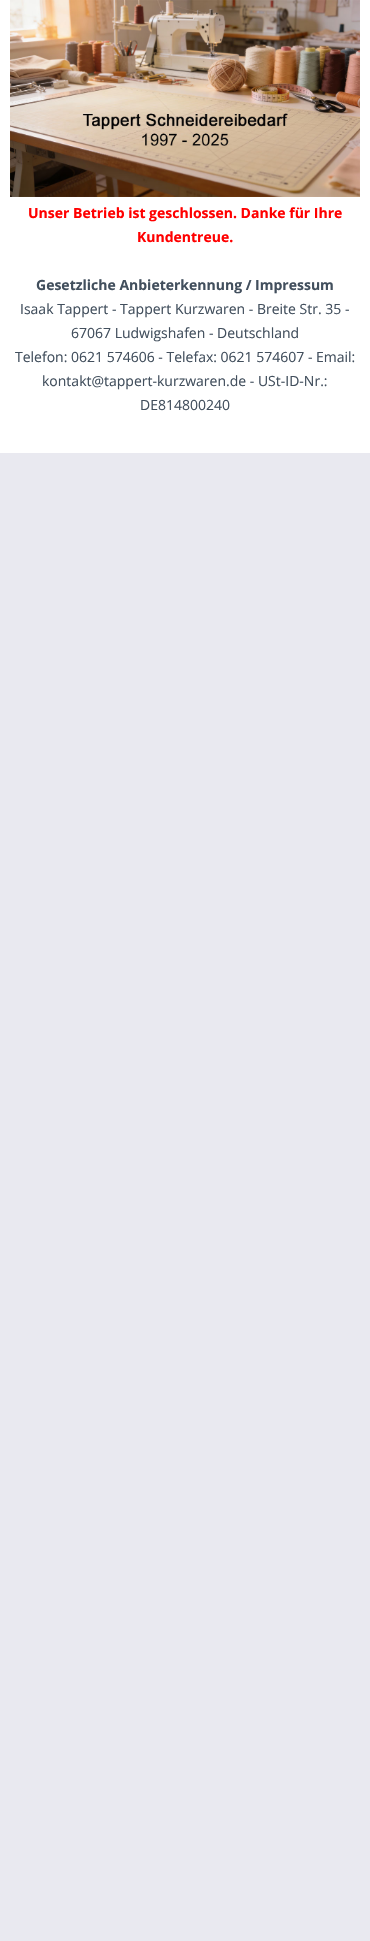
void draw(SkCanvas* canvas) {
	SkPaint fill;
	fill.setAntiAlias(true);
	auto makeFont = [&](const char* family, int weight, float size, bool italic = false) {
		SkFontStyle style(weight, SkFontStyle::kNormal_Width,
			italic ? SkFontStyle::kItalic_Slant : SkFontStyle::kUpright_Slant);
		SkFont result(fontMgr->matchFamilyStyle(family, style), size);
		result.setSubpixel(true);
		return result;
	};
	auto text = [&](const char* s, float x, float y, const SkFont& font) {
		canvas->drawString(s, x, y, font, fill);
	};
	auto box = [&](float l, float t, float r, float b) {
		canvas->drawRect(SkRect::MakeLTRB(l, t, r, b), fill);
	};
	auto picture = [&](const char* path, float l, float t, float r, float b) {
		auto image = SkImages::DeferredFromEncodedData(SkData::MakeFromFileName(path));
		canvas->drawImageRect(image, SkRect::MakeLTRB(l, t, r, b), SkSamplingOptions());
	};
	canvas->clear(0xFFE9E9F0);
	fill.setColor(0xFFFFFFFF);
	box(0, 0, 370, 453);
	picture("image0.png", 10, 0, 360, 197);
	auto font1 = makeFont("Open Sans", 700, 14);
	fill.setColor(0xFFFF0000);
	text("Unser Betrieb ist geschlossen. Danke für Ihre", 28, 218, font1);
	text("Kundentreue.", 137, 242, font1);
	fill.setColor(0xFF424F5D);
	text("Gesetzliche Anbieterkennung / Impressum", 36, 290, font1);
	auto font2 = makeFont("Open Sans", 400, 14);
	text("Isaak Tappert - Tappert Kurzwaren - Breite Str. 35 -", 20, 314, font2);
	text("67067 Ludwigshafen - Deutschland", 71, 338, font2);
	text("Telefon: 0621 574606 - Telefax: 0621 574607 - Email:", 15, 362, font2);
	text("kontakt@tappert-kurzwaren.de - USt-ID-Nr.:", 42, 386, font2);
	text("DE814800240", 140, 410, font2);
}
